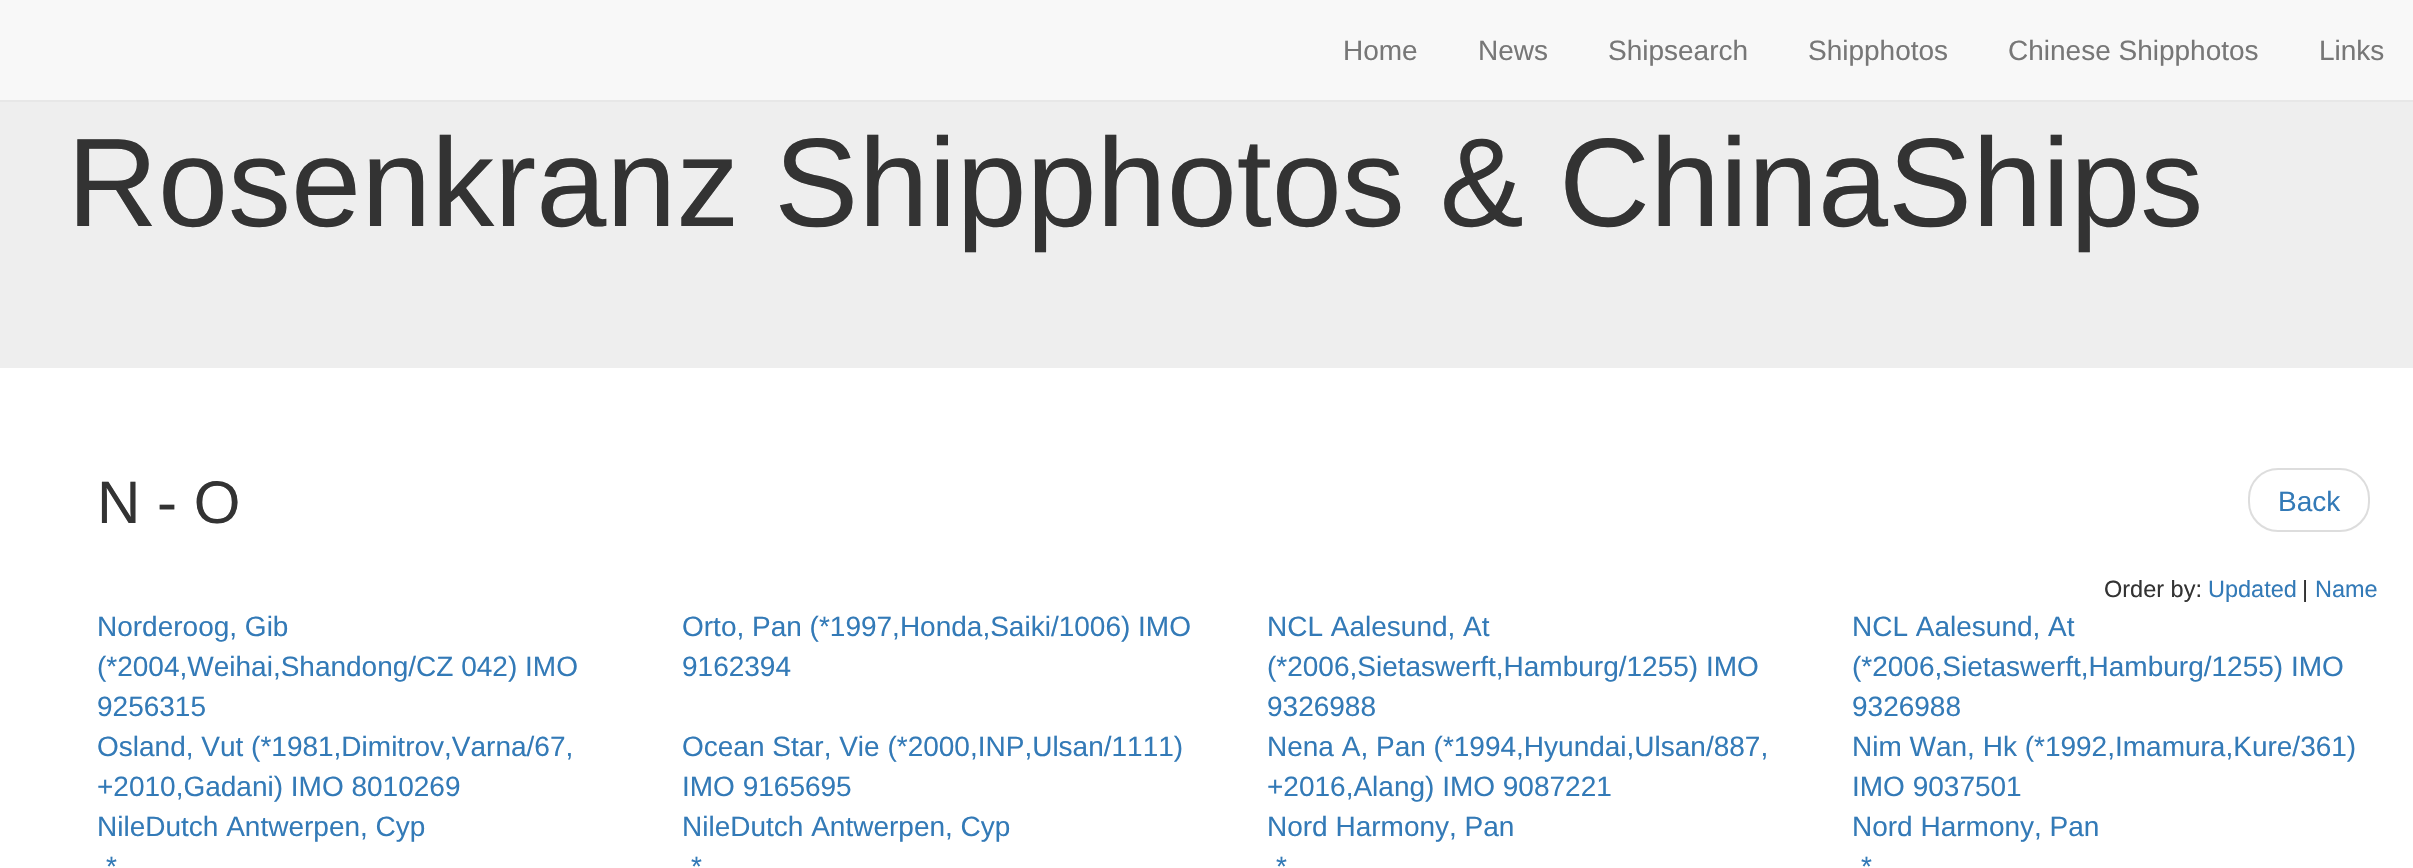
void draw(SkCanvas* canvas) {
	SkPaint fill;
	fill.setAntiAlias(true);
	auto makeFont = [&](const char* family, int weight, float size, bool italic = false) {
		SkFontStyle style(weight, SkFontStyle::kNormal_Width,
			italic ? SkFontStyle::kItalic_Slant : SkFontStyle::kUpright_Slant);
		SkFont result(fontMgr->matchFamilyStyle(family, style), size);
		result.setSubpixel(true);
		return result;
	};
	auto text = [&](const char* s, float x, float y, const SkFont& font) {
		canvas->drawString(s, x, y, font, fill);
	};
	auto box = [&](float l, float t, float r, float b) {
		canvas->drawRect(SkRect::MakeLTRB(l, t, r, b), fill);
	};
	canvas->clear(0xFFFFFFFF);
	fill.setColor(0xFFF8F8F8);
	box(0, 0, 2413, 100);
	fill.setColor(0xFFE7E7E7);
	box(0, 100, 2413, 102);
	fill.setColor(0xFFEEEEEE);
	box(0, 102, 2413, 368);
	fill.setStyle(SkPaint::kStroke_Style);
	fill.setStrokeWidth(2);
	fill.setColor(0xFFDDDDDD);
	canvas->drawRoundRect(SkRect::MakeLTRB(2249, 469, 2369, 531), 29, 29, fill);
	auto font1 = makeFont("Liberation Sans", 400, 28);
	fill.setStyle(SkPaint::kFill_Style);
	fill.setColor(0xFF777777);
	text("Home", 1343, 60, font1);
	text("News", 1478, 60, font1);
	text("Shipsearch", 1608, 60, font1);
	text("Shipphotos", 1808, 60, font1);
	text("Chinese Shipphotos", 2008, 60, font1);
	text("Links", 2319, 60, font1);
	auto font2 = makeFont("Liberation Sans", 400, 126);
	fill.setColor(0xFF333333);
	text("Rosenkranz Shipphotos & ChinaShips", 67, 226, font2);
	auto font3 = makeFont("Liberation Sans", 400, 60);
	text("N - O", 97, 523, font3);
	fill.setColor(0xFF337AB7);
	text("Back", 2278, 511, font1);
	auto font4 = makeFont("Liberation Sans", 400, 23.5f);
	fill.setColor(0xFF333333);
	text("Order by:", 2104, 597, font4);
	fill.setColor(0xFF337AB7);
	text("Updated", 2208, 597, font4);
	fill.setColor(0xFF333333);
	text("|", 2302, 597, font4);
	fill.setColor(0xFF337AB7);
	text("Name", 2315, 597, font4);
	text("Norderoog, Gib", 97, 636, font1);
	text("(*2004,Weihai,Shandong/CZ 042) IMO", 97, 676, font1);
	text("9256315", 97, 716, font1);
	text("Orto, Pan (*1997,Honda,Saiki/1006) IMO", 682, 636, font1);
	text("9162394", 682, 676, font1);
	text("NCL Aalesund, At", 1267, 636, font1);
	text("(*2006,Sietaswerft,Hamburg/1255) IMO", 1267, 676, font1);
	text("9326988", 1267, 716, font1);
	text("NCL Aalesund, At", 1852, 636, font1);
	text("(*2006,Sietaswerft,Hamburg/1255) IMO", 1852, 676, font1);
	text("9326988", 1852, 716, font1);
	text("Osland, Vut (*1981,Dimitrov,Varna/67,", 97, 756, font1);
	text("+2010,Gadani) IMO 8010269", 97, 796, font1);
	text("Ocean Star, Vie (*2000,INP,Ulsan/1111)", 682, 756, font1);
	text("IMO 9165695", 682, 796, font1);
	text("Nena A, Pan (*1994,Hyundai,Ulsan/887,", 1267, 756, font1);
	text("+2016,Alang) IMO 9087221", 1267, 796, font1);
	text("Nim Wan, Hk (*1992,Imamura,Kure/361)", 1852, 756, font1);
	text("IMO 9037501", 1852, 796, font1);
	text("NileDutch Antwerpen, Cyp", 97, 836, font1);
	text("*", 106, 876, font1);
	text("NileDutch Antwerpen, Cyp", 682, 836, font1);
	text("*", 691, 876, font1);
	text("Nord Harmony, Pan", 1267, 836, font1);
	text("*", 1276, 876, font1);
	text("Nord Harmony, Pan", 1852, 836, font1);
	text("*", 1861, 876, font1);
}
